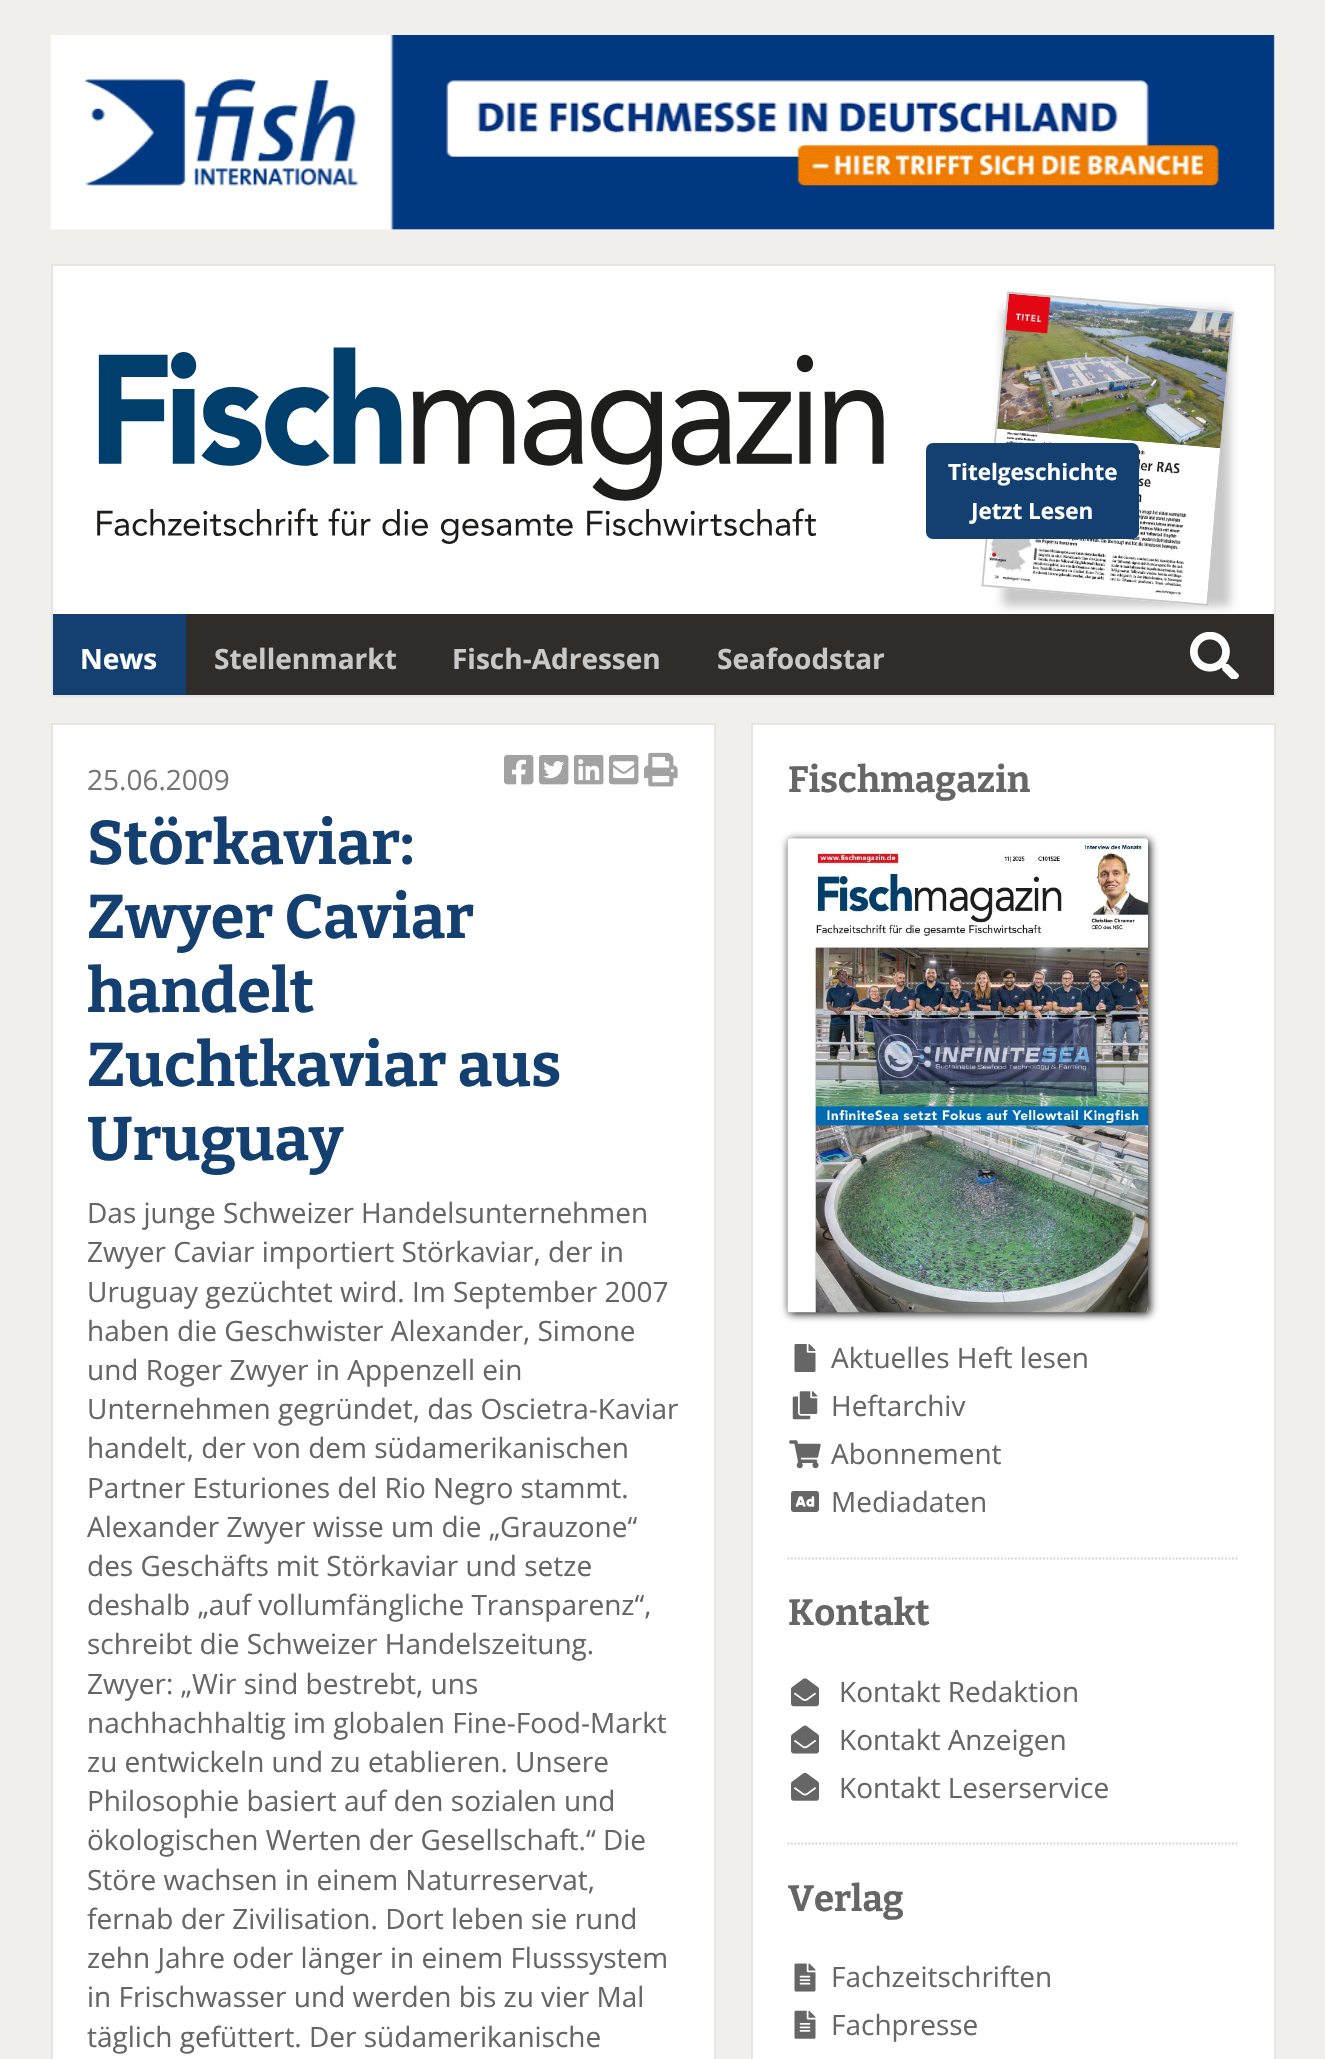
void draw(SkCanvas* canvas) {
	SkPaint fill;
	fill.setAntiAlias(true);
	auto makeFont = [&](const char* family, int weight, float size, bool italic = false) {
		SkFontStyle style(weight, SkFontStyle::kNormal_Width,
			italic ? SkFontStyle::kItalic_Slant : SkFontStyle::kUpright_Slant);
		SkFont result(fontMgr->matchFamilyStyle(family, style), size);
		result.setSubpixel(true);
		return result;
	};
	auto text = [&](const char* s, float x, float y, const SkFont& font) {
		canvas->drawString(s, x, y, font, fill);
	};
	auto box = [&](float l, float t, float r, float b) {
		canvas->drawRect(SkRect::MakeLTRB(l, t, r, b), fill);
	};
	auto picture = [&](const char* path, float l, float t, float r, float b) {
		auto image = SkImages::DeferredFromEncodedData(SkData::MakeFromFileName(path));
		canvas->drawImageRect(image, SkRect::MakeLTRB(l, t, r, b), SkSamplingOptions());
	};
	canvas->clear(0xFFF1EFEC);
	picture("image0.png", 50, 35, 1275, 230);
	fill.setColor(0xFFFFFFFF);
	box(53, 266, 1274, 614);
	fill.setColor(0xFFE5E5E5);
	box(51, 264, 1276, 266);
	box(1274, 264, 1276, 697);
	box(51, 264, 53, 614);
	picture("image1.png", 97, 347, 884, 544);
	fill.setColor(0xFFC8C8C8);
	fill.setMaskFilter(SkMaskFilter::MakeBlur(kNormal_SkBlurStyle, 4.5f));
	canvas->drawRect(SkRect::MakeLTRB(1003, 310, 1230, 606), fill);
	fill.setMaskFilter(nullptr);
	picture("image2.png", 989, 293, 1232, 606);
	fill.setStyle(SkPaint::kStroke_Style);
	fill.setStrokeWidth(1.8f);
	canvas->drawPath(SkPathBuilder().moveTo(1008, 292.5f).lineTo(1233, 312.5f).lineTo(1207.5f, 605).lineTo(982.5f, 585.5f).close().detach(), fill);
	fill.setStyle(SkPaint::kFill_Style);
	fill.setColor(0xFF144071);
	canvas->drawRoundRect(SkRect::MakeLTRB(927, 444, 1138, 538), 6, 6, fill);
	fill.setStyle(SkPaint::kStroke_Style);
	fill.setStrokeWidth(2);
	canvas->drawRoundRect(SkRect::MakeLTRB(927, 444, 1138, 538), 6, 6, fill);
	fill.setStyle(SkPaint::kFill_Style);
	fill.setColor(0xFFE5E5E5);
	box(51, 695, 1276, 697);
	box(51, 614, 53, 697);
	fill.setColor(0xFF2F2C2A);
	box(186, 614, 1274, 695);
	fill.setColor(0xFF144071);
	box(53, 614, 186, 695);
	picture("image3.png", 1190, 632, 1239, 679);
	fill.setColor(0xFFFFFFFF);
	canvas->drawRect(SkRect::MakeLTRB(52, 724, 715, 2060), fill);
	fill.setStyle(SkPaint::kStroke_Style);
	fill.setColor(0xFFE5E5E5);
	canvas->drawRect(SkRect::MakeLTRB(52, 724, 715, 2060), fill);
	picture("image4.png", 504, 754, 534, 785);
	picture("image5.png", 539, 754, 569, 785);
	picture("image6.png", 574, 754, 604, 785);
	picture("image7.png", 609, 754, 639, 785);
	picture("image8.png", 644, 752, 678, 787);
	fill.setStyle(SkPaint::kFill_Style);
	fill.setColor(0xFFFFFFFF);
	canvas->drawRect(SkRect::MakeLTRB(752, 724, 1275, 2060), fill);
	fill.setStyle(SkPaint::kStroke_Style);
	fill.setColor(0xFFE5E5E5);
	canvas->drawRect(SkRect::MakeLTRB(752, 724, 1275, 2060), fill);
	fill.setStyle(SkPaint::kFill_Style);
	fill.setColor(0xFF111111);
	fill.setMaskFilter(SkMaskFilter::MakeBlur(kNormal_SkBlurStyle, 4.5f));
	canvas->drawRoundRect(SkRect::MakeLTRB(789, 840, 1150, 1314), 4, 4, fill);
	fill.setMaskFilter(nullptr);
	picture("image9.png", 787, 838, 1148, 1313);
	picture("image10.png", 794, 1344, 816, 1372);
	picture("image11.png", 792, 1391, 818, 1420);
	picture("image12.png", 789, 1440, 821, 1469);
	picture("image13.png", 791, 1491, 819, 1512);
	fill.setStyle(SkPaint::kStroke_Style);
	fill.setStrokeWidth(1.8f);
	fill.setColor(0xFFD3D3D3);
	fill.setPathEffect(SkDashPathEffect::Make({{1.75f, 1.75f}}, 0));
	canvas->drawPath(SkPathBuilder().moveTo(787.5f, 1558.5f).lineTo(1239, 1558.5f).detach(), fill);
	fill.setPathEffect(nullptr);
	picture("image14.png", 791, 1678, 819, 1707);
	picture("image15.png", 791, 1725, 819, 1754);
	picture("image16.png", 791, 1772, 819, 1801);
	fill.setPathEffect(SkDashPathEffect::Make({{1.75f, 1.75f}}, 0));
	canvas->drawPath(SkPathBuilder().moveTo(787.5f, 1843.5f).lineTo(1239, 1843.5f).detach(), fill);
	fill.setPathEffect(nullptr);
	picture("image17.png", 794, 1963, 816, 1992);
	picture("image18.png", 794, 2010, 816, 2039);
	auto font1 = makeFont("Open Sans", 700, 22.5f);
	fill.setStyle(SkPaint::kFill_Style);
	fill.setColor(0xFFFFFFFF);
	text("Titelgeschichte", 948, 480, font1);
	text("Jetzt Lesen", 971, 519, font1);
	auto font2 = makeFont("Open Sans", 700, 28);
	text("News", 80, 669, font2);
	fill.setColor(0xFFC8C8C8);
	text("Stellenmarkt", 214, 669, font2);
	text("Fisch-Adressen", 452, 669, font2);
	text("Seafoodstar", 717, 669, font2);
	auto font3 = makeFont("Open Sans", 400, 28);
	fill.setColor(0xFF767676);
	text("25.06.2009", 87, 790, font3);
	auto font4 = makeFont("Bitter", 700, 61.5f);
	fill.setColor(0xFF144071);
	text("Störkaviar:", 87, 864, font4);
	text("Zwyer Caviar", 87, 938, font4);
	text("handelt", 87, 1012, font4);
	text("Zuchtkaviar aus", 87, 1086, font4);
	text("Uruguay", 87, 1160, font4);
	fill.setColor(0xFF666666);
	text("Das junge Schweizer Handelsunternehmen", 87, 1223, font3);
	text("Zwyer Caviar importiert Störkaviar, der in", 87, 1262, font3);
	text("Uruguay gezüchtet wird. Im September 2007", 87, 1302, font3);
	text("haben die Geschwister Alexander, Simone", 87, 1341, font3);
	text("und Roger Zwyer in Appenzell ein", 87, 1380, font3);
	text("Unternehmen gegründet, das Oscietra-Kaviar", 87, 1419, font3);
	text("handelt, der von dem südamerikanischen", 87, 1458, font3);
	text("Partner Esturiones del Rio Negro stammt.", 87, 1498, font3);
	text("Alexander Zwyer wisse um die „Grauzone“", 87, 1537, font3);
	text("des Geschäfts mit Störkaviar und setze", 87, 1576, font3);
	text("deshalb „auf vollumfängliche Transparenz“,", 87, 1615, font3);
	text("schreibt die Schweizer Handelszeitung.", 87, 1654, font3);
	text("Zwyer: „Wir sind bestrebt, uns", 87, 1694, font3);
	text("nachhachhaltig im globalen Fine-Food-Markt", 87, 1733, font3);
	text("zu entwickeln und zu etablieren. Unsere", 87, 1772, font3);
	text("Philosophie basiert auf den sozialen und", 87, 1811, font3);
	text("ökologischen Werten der Gesellschaft.“ Die", 87, 1850, font3);
	text("Störe wachsen in einem Naturreservat,", 87, 1890, font3);
	text("fernab der Zivilisation. Dort leben sie rund", 87, 1929, font3);
	text("zehn Jahre oder länger in einem Flusssystem", 87, 1968, font3);
	text("in Frischwasser und werden bis zu vier Mal", 87, 2007, font3);
	text("täglich gefüttert. Der südamerikanische", 87, 2047, font3);
	auto font5 = makeFont("Bitter", 700, 36.5f);
	text("Fischmagazin", 788, 792, font5);
	text("Aktuelles Heft lesen", 831, 1368, font3);
	text("Heftarchiv", 831, 1416, font3);
	text("Abonnement", 831, 1464, font3);
	text("Mediadaten", 831, 1512, font3);
	text("Kontakt", 788, 1625, font5);
	text("Kontakt Redaktion", 839, 1702, font3);
	text("Kontakt Anzeigen", 839, 1750, font3);
	text("Kontakt Leserservice", 839, 1798, font3);
	text("Verlag", 788, 1911, font5);
	text("Fachzeitschriften", 831, 1987, font3);
	text("Fachpresse", 831, 2035, font3);
}
